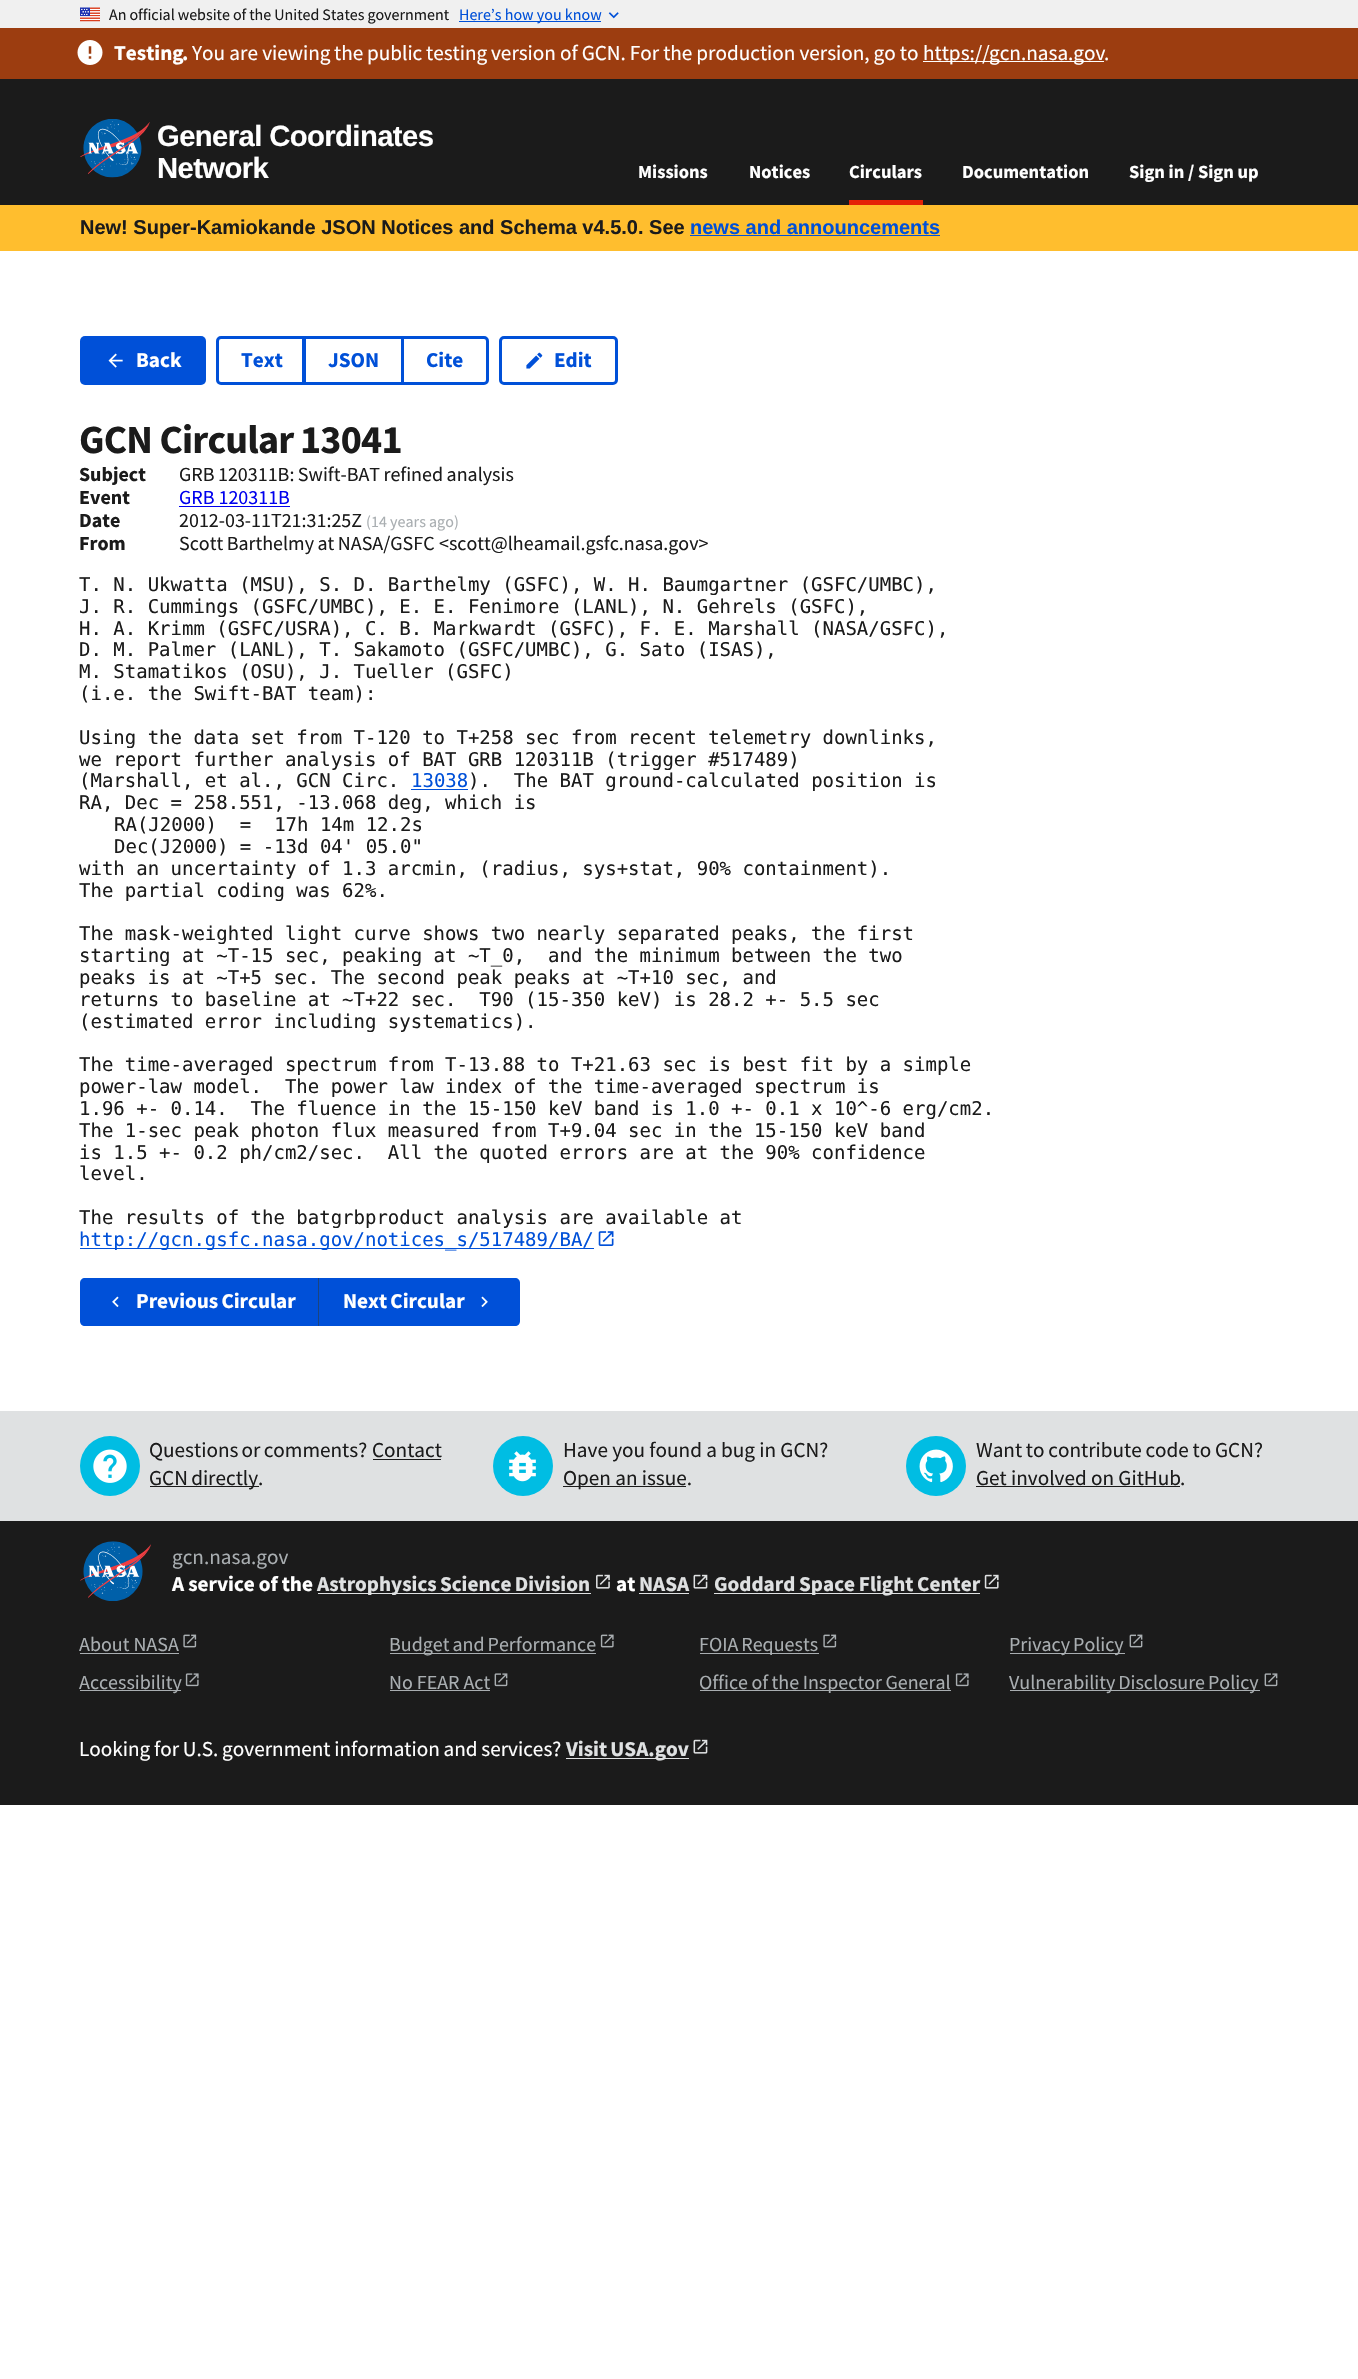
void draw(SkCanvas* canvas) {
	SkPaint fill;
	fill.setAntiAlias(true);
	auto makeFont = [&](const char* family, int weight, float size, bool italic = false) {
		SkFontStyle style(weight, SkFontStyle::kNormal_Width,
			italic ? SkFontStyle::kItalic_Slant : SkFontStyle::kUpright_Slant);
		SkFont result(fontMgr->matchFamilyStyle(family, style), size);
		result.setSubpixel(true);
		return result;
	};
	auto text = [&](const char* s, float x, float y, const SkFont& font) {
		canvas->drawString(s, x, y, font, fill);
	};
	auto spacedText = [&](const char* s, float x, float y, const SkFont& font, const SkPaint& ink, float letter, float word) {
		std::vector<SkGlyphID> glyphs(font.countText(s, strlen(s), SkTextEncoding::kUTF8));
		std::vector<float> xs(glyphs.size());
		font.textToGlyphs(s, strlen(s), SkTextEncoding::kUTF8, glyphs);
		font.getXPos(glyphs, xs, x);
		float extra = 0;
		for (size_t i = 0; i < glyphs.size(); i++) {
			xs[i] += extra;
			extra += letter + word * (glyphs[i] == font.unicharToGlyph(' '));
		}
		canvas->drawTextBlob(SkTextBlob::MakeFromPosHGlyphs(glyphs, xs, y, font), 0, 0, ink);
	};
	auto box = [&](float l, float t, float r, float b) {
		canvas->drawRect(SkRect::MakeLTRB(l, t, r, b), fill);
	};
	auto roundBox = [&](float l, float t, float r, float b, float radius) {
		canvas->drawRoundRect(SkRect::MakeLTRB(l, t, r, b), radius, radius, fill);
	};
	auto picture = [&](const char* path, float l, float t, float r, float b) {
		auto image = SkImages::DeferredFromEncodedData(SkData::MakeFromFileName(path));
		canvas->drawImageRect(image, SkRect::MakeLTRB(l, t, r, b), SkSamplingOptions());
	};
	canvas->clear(0xFFFFFFFF);
	fill.setColor(0xFFF0F0F0);
	box(0, 0, 1358, 28);
	picture("image0.png", 80, 7, 100, 22);
	fill.setColor(0xFF0050D8);
	box(459, 21, 601, 22);
	picture("image1.png", 608, 12, 619, 19);
	fill.setColor(0xFF9C3D10);
	box(0, 28, 1358, 79);
	picture("image2.png", 77, 40, 103, 65);
	fill.setColor(0xFFFFFFFF);
	box(923, 61, 989, 62);
	box(989, 61, 1104, 62);
	fill.setColor(0xFF1B1B1B);
	box(0, 79, 1358, 205);
	picture("image3.png", 80, 119, 150, 178);
	fill.setColor(0xFFE52207);
	box(849, 200, 923, 205);
	fill.setColor(0xFFFFBE2E);
	box(0, 205, 1358, 251);
	fill.setColor(0xFF0050D8);
	box(690, 235, 940, 236);
	roundBox(80, 336, 206, 385, 5);
	picture("image4.png", 108, 353, 123, 368);
	fill.setStyle(SkPaint::kStroke_Style);
	fill.setStrokeWidth(3);
	canvas->drawPath(SkPathBuilder().moveTo(221, 337.5f).lineTo(303.5f, 337.5f).lineTo(303.5f, 383.5f).lineTo(221, 383.5f).cubicTo(219, 383.5f, 217.5f, 382, 217.5f, 380).lineTo(217.5f, 341).cubicTo(217.5f, 339, 219, 337.5f, 221, 337.5f).close().detach(), fill);
	canvas->drawRect(SkRect::MakeLTRB(304.5f, 337.5f, 402.5f, 383.5f), fill);
	canvas->drawPath(SkPathBuilder().moveTo(402.5f, 337.5f).lineTo(484, 337.5f).cubicTo(486, 337.5f, 487.5f, 339, 487.5f, 341).lineTo(487.5f, 380).cubicTo(487.5f, 382, 486, 383.5f, 484, 383.5f).lineTo(402.5f, 383.5f).close().detach(), fill);
	canvas->drawRoundRect(SkRect::MakeLTRB(500.5f, 337.5f, 616.5f, 383.5f), 3.5f, 3.5f, fill);
	picture("image5.png", 526, 352, 543, 369);
	fill.setStyle(SkPaint::kFill_Style);
	fill.setColor(0xFF0000EE);
	box(179, 506, 290, 507);
	fill.setColor(0xFF0050D8);
	box(411, 789, 468, 790);
	box(80, 1248, 594, 1249);
	picture("image6.png", 598, 1231, 614, 1246);
	canvas->drawPath(SkPathBuilder().moveTo(85, 1278).lineTo(320, 1278).lineTo(320, 1326).lineTo(85, 1326).cubicTo(82, 1326, 80, 1324, 80, 1321).lineTo(80, 1283).cubicTo(80, 1280, 82, 1278, 85, 1278).close().detach(), fill);
	picture("image7.png", 112, 1296, 119, 1307);
	canvas->drawPath(SkPathBuilder().moveTo(318, 1278).lineTo(515, 1278).cubicTo(518, 1278, 520, 1280, 520, 1283).lineTo(520, 1321).cubicTo(520, 1324, 518, 1326, 515, 1326).lineTo(318, 1326).close().detach(), fill);
	fill.setColor(0xFF1A4480);
	box(318, 1278, 319, 1326);
	picture("image8.png", 481, 1296, 488, 1307);
	fill.setColor(0xFF1B1B1B);
	box(0, 1521, 1358, 1805);
	fill.setColor(0xFFDFE1E2);
	box(0, 1411, 1358, 1521);
	fill.setColor(0xFF00BDE3);
	canvas->drawCircle(110, 1466, 30, fill);
	picture("image9.png", 93, 1449, 127, 1483);
	fill.setColor(0xFF1B1B1B);
	box(373, 1459, 441, 1460);
	box(150, 1486, 259, 1487);
	fill.setColor(0xFF00BDE3);
	canvas->drawCircle(523, 1466, 30, fill);
	picture("image10.png", 509, 1451, 536, 1482);
	fill.setColor(0xFF1B1B1B);
	box(563, 1486, 686, 1487);
	fill.setColor(0xFF00BDE3);
	canvas->drawCircle(936, 1466, 30, fill);
	picture("image11.png", 919, 1449, 953, 1483);
	fill.setColor(0xFF1B1B1B);
	box(976, 1486, 1180, 1487);
	picture("image12.png", 80, 1541, 151, 1601);
	fill.setColor(0xFFDFE1E2);
	box(318, 1593, 591, 1594);
	picture("image13.png", 596, 1574, 610, 1589);
	box(639, 1593, 689, 1594);
	picture("image14.png", 693, 1574, 708, 1589);
	box(714, 1593, 980, 1594);
	picture("image15.png", 984, 1574, 999, 1589);
	fill.setColor(0xFFA9AEB1);
	box(80, 1653, 179, 1654);
	picture("image16.png", 183, 1634, 197, 1648);
	box(390, 1653, 596, 1654);
	picture("image17.png", 600, 1634, 614, 1648);
	box(700, 1653, 819, 1654);
	picture("image16.png", 823, 1634, 837, 1648);
	box(1010, 1653, 1125, 1654);
	picture("image18.png", 1129, 1634, 1143, 1648);
	box(80, 1690, 181, 1691);
	picture("image19.png", 185, 1673, 199, 1687);
	box(390, 1690, 490, 1691);
	picture("image20.png", 494, 1673, 508, 1687);
	box(700, 1690, 951, 1691);
	picture("image19.png", 955, 1673, 969, 1687);
	box(1010, 1690, 1260, 1691);
	picture("image20.png", 1264, 1673, 1278, 1687);
	fill.setColor(0xFFDFE1E2);
	box(566, 1758, 689, 1759);
	picture("image14.png", 693, 1739, 708, 1754);
	auto font1 = makeFont("Source Sans Pro", 400, 16);
	fill.setColor(0xFF1B1B1B);
	spacedText("An official website of the United States government", 109, 20, font1, fill, 0, -0.25f);
	fill.setColor(0xFF0050D8);
	text("Here’s how you know", 459, 20, font1);
	auto font2 = makeFont("Source Sans Pro", 700, 21.2f);
	fill.setColor(0xFFFFFFFF);
	text("Testing", 114, 60, font2);
	text(".", 182, 60, font2);
	auto font3 = makeFont("Source Sans Pro", 400, 21.2f);
	text("You are viewing", 192, 60, font3);
	spacedText("the public testing version", 334, 60, font3, fill, 0, -0.5f);
	spacedText("of GCN. For the production version, go to", 560, 60, font3, fill, 0, -0.25f);
	text("https://", 923, 60, font3);
	text("gcn.nasa.gov", 989, 60, font3);
	text(".", 1104, 60, font3);
	auto font4 = makeFont("Liberation Sans", 700, 29.25f);
	spacedText("General Coordinates", 157, 146, font4, fill, -0.6f, 0);
	spacedText("Network", 157, 178, font4, fill, -0.6f, 0);
	auto font5 = makeFont("Source Sans Pro", 700, 18.5f);
	text("Missions", 638, 178, font5);
	text("Notices", 749, 178, font5);
	text("Circulars", 849, 178, font5);
	text("Documentation", 962, 178, font5);
	text("Sign in / Sign up", 1129, 178, font5);
	auto font6 = makeFont("Liberation Sans", 700, 20);
	fill.setColor(0xFF1B1B1B);
	text("New! Super-Kamiokande JSON Notices and Schema v4.5.0. See", 80, 234, font6);
	fill.setColor(0xFF0050D8);
	text("news and announcements", 690, 234, font6);
	fill.setColor(0xFFFFFFFF);
	text("Back", 136, 367, font2);
	fill.setColor(0xFF0050D8);
	text("Text", 241, 367, font2);
	text("JSON", 328, 367, font2);
	text("Cite", 426, 367, font2);
	text("Edit", 554, 367, font2);
	auto font7 = makeFont("Source Sans Pro", 700, 40);
	fill.setColor(0xFF1B1B1B);
	spacedText("GCN Circular", 79, 453, font7, fill, -0.75f, 0);
	spacedText("13041", 300, 453, font7, fill, -0.75f, 0);
	auto font8 = makeFont("Source Sans Pro", 700, 20);
	text("Subject", 79, 481, font8);
	auto font9 = makeFont("Source Sans Pro", 400, 20);
	spacedText("GRB 120311B: Swift-BAT refined analysis", 179, 481, font9, fill, 0, -0.5f);
	text("Event", 79, 504, font8);
	fill.setColor(0xFF0000EE);
	text("GRB 120311B", 179, 504, font9);
	fill.setColor(0xFF1B1B1B);
	text("Date", 79, 527, font8);
	text("2012-03-11T21:31:25Z", 179, 527, font9);
	fill.setColor(0xFFA9AEB1);
	text("(", 366, 527, font1);
	text("14 years ago", 371, 527, font1);
	text(")", 454, 527, font1);
	fill.setColor(0xFF1B1B1B);
	text("From", 79, 550, font8);
	spacedText("Scott Barthelmy at NASA/GSFC", 179, 550, font9, fill, 0, -0.5f);
	text("<scott@lheamail.gsfc.nasa.gov>", 439, 550, font9);
	auto font10 = makeFont("DejaVu Sans Mono", 400, 19);
	text("T. N. Ukwatta (MSU), S. D. Barthelmy (GSFC), W. H. Baumgartner (GSFC/UMBC),", 79, 591, font10);
	text("J. R. Cummings (GSFC/UMBC), E. E. Fenimore (LANL), N. Gehrels (GSFC),", 79, 613, font10);
	text("H. A. Krimm (GSFC/USRA), C. B. Markwardt (GSFC), F. E. Marshall (NASA/GSFC),", 79, 635, font10);
	text("D. M. Palmer (LANL), T. Sakamoto (GSFC/UMBC), G. Sato (ISAS),", 79, 656, font10);
	text("M. Stamatikos (OSU), J. Tueller (GSFC)", 79, 678, font10);
	text("(i.e. the Swift-BAT team):", 79, 700, font10);
	text("Using the data set from T-120 to T+258 sec from recent telemetry downlinks,", 79, 744, font10);
	text("we report further analysis of BAT GRB 120311B (trigger #517489)", 79, 766, font10);
	text("(Marshall, et al., GCN Circ.", 79, 787, font10);
	fill.setColor(0xFF0050D8);
	text("13038", 411, 787, font10);
	fill.setColor(0xFF1B1B1B);
	text(").  The BAT ground-calculated position is", 468, 787, font10);
	text("RA, Dec = 258.551, -13.068 deg, which is", 79, 809, font10);
	text("RA(J2000)  =  17h 14m 12.2s", 114, 831, font10);
	text("Dec(J2000) = -13d 04' 05.0\"", 114, 853, font10);
	text("with an uncertainty of 1.3 arcmin, (radius, sys+stat, 90% containment).", 79, 875, font10);
	text("The partial coding was 62%.", 79, 897, font10);
	text("The mask-weighted light curve shows two nearly separated peaks, the first", 79, 940, font10);
	text("starting at ~T-15 sec, peaking at ~T_0,  and the minimum between the two", 79, 962, font10);
	text("peaks is at ~T+5 sec. The second peak peaks at ~T+10 sec, and", 79, 984, font10);
	text("returns to baseline at ~T+22 sec.  T90 (15-350 keV) is 28.2 +- 5.5 sec", 79, 1006, font10);
	text("(estimated error including systematics).", 79, 1028, font10);
	text("The time-averaged spectrum from T-13.88 to T+21.63 sec is best fit by a simple", 79, 1071, font10);
	text("power-law model.  The power law index of the time-averaged spectrum is", 79, 1093, font10);
	text("1.96 +- 0.14.  The fluence in the 15-150 keV band is 1.0 +- 0.1 x 10^-6 erg/cm2.", 79, 1115, font10);
	text("The 1-sec peak photon flux measured from T+9.04 sec in the 15-150 keV band", 79, 1137, font10);
	text("is 1.5 +- 0.2 ph/cm2/sec.  All the quoted errors are at the 90% confidence", 79, 1159, font10);
	text("level.", 79, 1180, font10);
	text("The results of the batgrbproduct analysis are available at", 79, 1224, font10);
	fill.setColor(0xFF0050D8);
	text("http://gcn.gsfc.nasa.gov/notices_s/517489/BA/", 79, 1246, font10);
	fill.setColor(0xFFFFFFFF);
	spacedText("Previous Circular", 136, 1308, font2, fill, 0, -1);
	spacedText("Next Circular", 343, 1308, font2, fill, 0, -1);
	fill.setColor(0xFF1B1B1B);
	spacedText("Questions or comments?", 149, 1457, font3, fill, 0, -1);
	text("Contact", 372, 1457, font3);
	spacedText("GCN directly", 149, 1485, font3, fill, 0, -1);
	text(".", 258, 1485, font3);
	text("Have you found a bug in GCN?", 563, 1457, font3);
	text("Open an issue.", 563, 1485, font3);
	spacedText("Want to contribute code to GCN?", 976, 1457, font3, fill, 0, -0.5f);
	text("Get involved on GitHub", 976, 1485, font3);
	text(".", 1180, 1485, font3);
	fill.setColor(0xFFA9AEB1);
	text("gcn.nasa.gov", 172, 1564, font3);
	fill.setColor(0xFFFFFFFF);
	spacedText("A service of the", 172, 1591, font2, fill, 0, -0.25f);
	fill.setColor(0xFFDFE1E2);
	spacedText("Astrophysics Science Division", 317, 1591, font2, fill, 0, -1);
	fill.setColor(0xFFFFFFFF);
	text("at", 616, 1591, font2);
	fill.setColor(0xFFDFE1E2);
	text("NASA", 639, 1591, font2);
	spacedText("Goddard Space Flight Center", 714, 1591, font2, fill, 0, -0.5f);
	fill.setColor(0xFFA9AEB1);
	text("About NASA", 79, 1651, font9);
	spacedText("Budget and Performance", 389, 1651, font9, fill, 0, -1);
	spacedText("FOIA Requests", 699, 1651, font9, fill, 0, -1);
	spacedText("Privacy Policy", 1009, 1651, font9, fill, 0, -1);
	text("Accessibility", 79, 1689, font9);
	text("No FEAR Act", 389, 1689, font9);
	spacedText("Office of the Inspector General", 699, 1689, font9, fill, 0, -0.5f);
	spacedText("Vulnerability Disclosure Policy", 1009, 1689, font9, fill, 0, -1);
	fill.setColor(0xFFFFFFFF);
	spacedText("Looking for U.S. government information and services?", 79, 1756, font3, fill, 0, -0.5f);
	fill.setColor(0xFFDFE1E2);
	spacedText("Visit USA.gov", 566, 1756, font2, fill, 0, -1);
}
